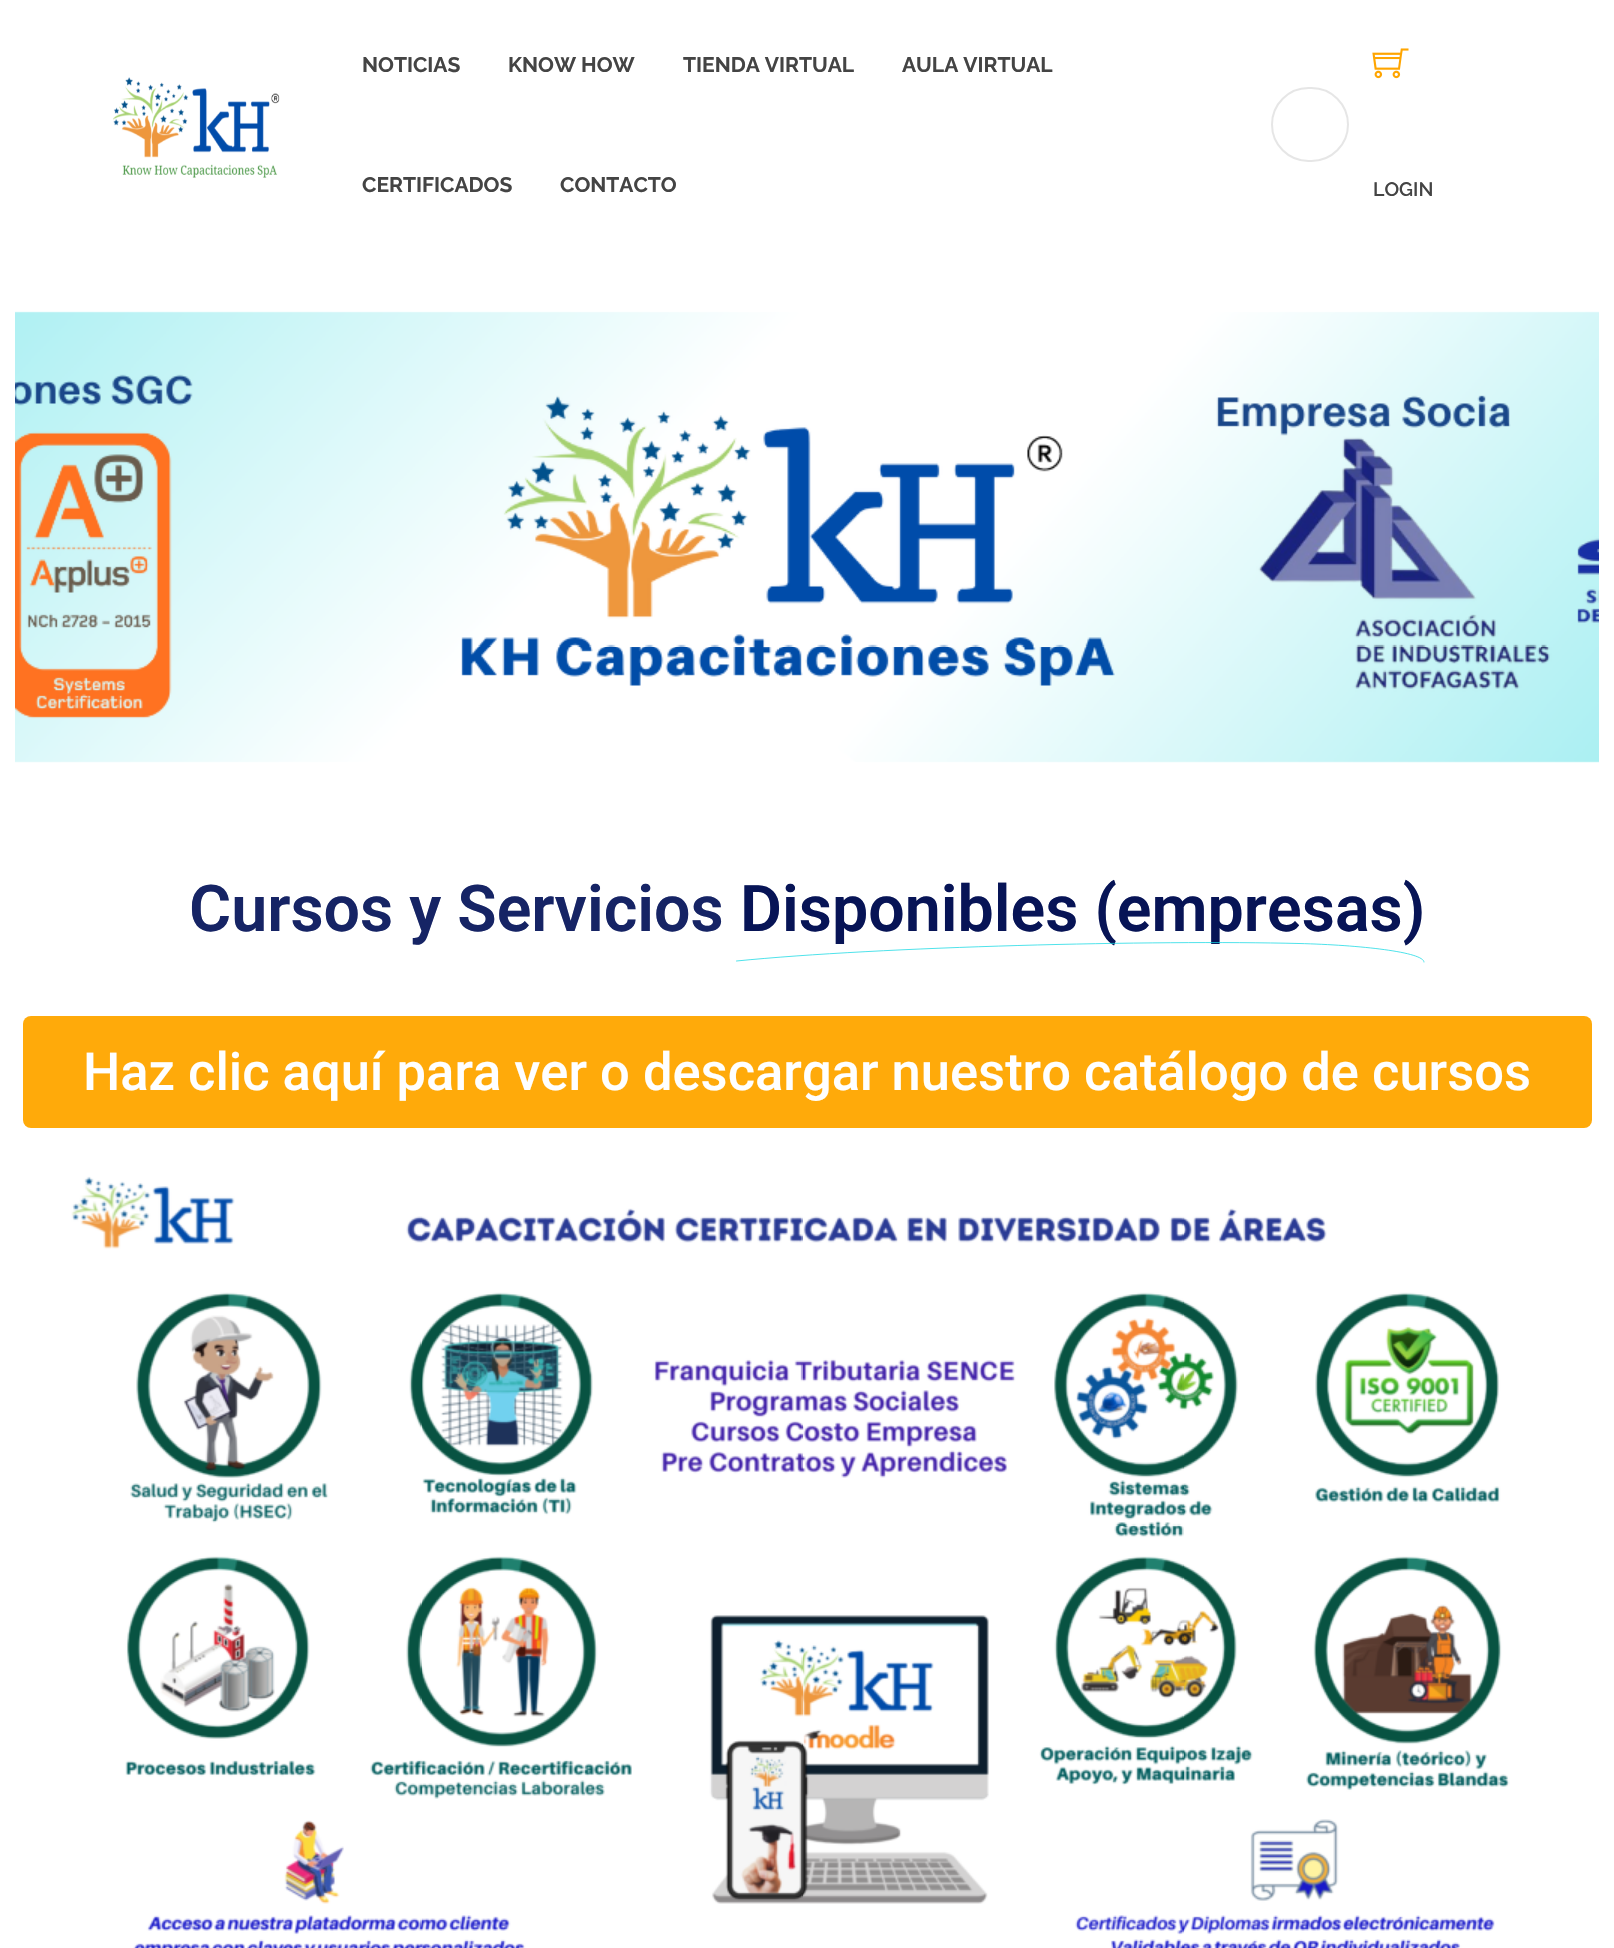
void draw(SkCanvas* canvas) {
	SkPaint fill;
	fill.setAntiAlias(true);
	auto makeFont = [&](const char* family, int weight, float size, bool italic = false) {
		SkFontStyle style(weight, SkFontStyle::kNormal_Width,
			italic ? SkFontStyle::kItalic_Slant : SkFontStyle::kUpright_Slant);
		SkFont result(fontMgr->matchFamilyStyle(family, style), size);
		result.setSubpixel(true);
		return result;
	};
	auto text = [&](const char* s, float x, float y, const SkFont& font) {
		canvas->drawString(s, x, y, font, fill);
	};
	auto roundBox = [&](float l, float t, float r, float b, float radius) {
		canvas->drawRoundRect(SkRect::MakeLTRB(l, t, r, b), radius, radius, fill);
	};
	auto picture = [&](const char* path, float l, float t, float r, float b) {
		auto image = SkImages::DeferredFromEncodedData(SkData::MakeFromFileName(path));
		canvas->drawImageRect(image, SkRect::MakeLTRB(l, t, r, b), SkSamplingOptions());
	};
	canvas->clear(0xFFFFFFFF);
	picture("image0.png", 112, 77, 280, 178);
	fill.setStyle(SkPaint::kStroke_Style);
	fill.setStrokeWidth(2);
	fill.setColor(0xFFE6E6E6);
	canvas->drawRoundRect(SkRect::MakeLTRB(1272, 88, 1348, 161), 36.5f, 36.5f, fill);
	picture("image1.png", 1372, 48, 1409, 79);
	picture("image2.png", 15, 311, 1599, 763);
	fill.setStyle(SkPaint::kFill_Style);
	fill.setColor(0xFFFFAA0A);
	roundBox(23, 1016, 1592, 1128, 8);
	picture("image3.png", 71, 1176, 1510, 1948);
	auto font1 = makeFont("Raleway", 700, 21);
	fill.setColor(0xFF444444);
	text("NOTICIAS", 362, 72, font1);
	text("KNOW HOW", 508, 72, font1);
	text("TIENDA VIRTUAL", 683, 72, font1);
	text("AULA VIRTUAL", 902, 72, font1);
	text("CERTIFICADOS", 362, 192, font1);
	text("CONTACTO", 560, 192, font1);
	auto font2 = makeFont("Raleway", 600, 19.5f);
	text("LOGIN", 1373, 196, font2);
	auto font3 = makeFont("Roboto", 600, 64.5f);
	fill.setColor(0xFF162465);
	text("Cursos y Servicios", 189, 931, font3);
	fill.setColor(0xFF071456);
	text("Disponibles (empresas)", 740, 931, font3);
	fill.setStyle(SkPaint::kStroke_Style);
	fill.setStrokeWidth(1);
	fill.setStrokeCap(SkPaint::kRound_Cap);
	fill.setStrokeJoin(SkPaint::kRound_Join);
	fill.setColor(0xC217D9E4);
	canvas->drawPath(SkPathBuilder().moveTo(736.5f, 961).cubicTo(881.5f, 946.5f, 1154.5f, 940, 1299, 943.5f).cubicTo(1359.5f, 945, 1424.5f, 952, 1424, 962).detach(), fill);
	auto font4 = makeFont("Roboto", 500, 52.5f);
	fill.setStyle(SkPaint::kFill_Style);
	fill.setColor(0xFFFFFFFF);
	text("Haz clic aquí para ver o descargar nuestro catálogo de cursos", 83, 1090, font4);
}
